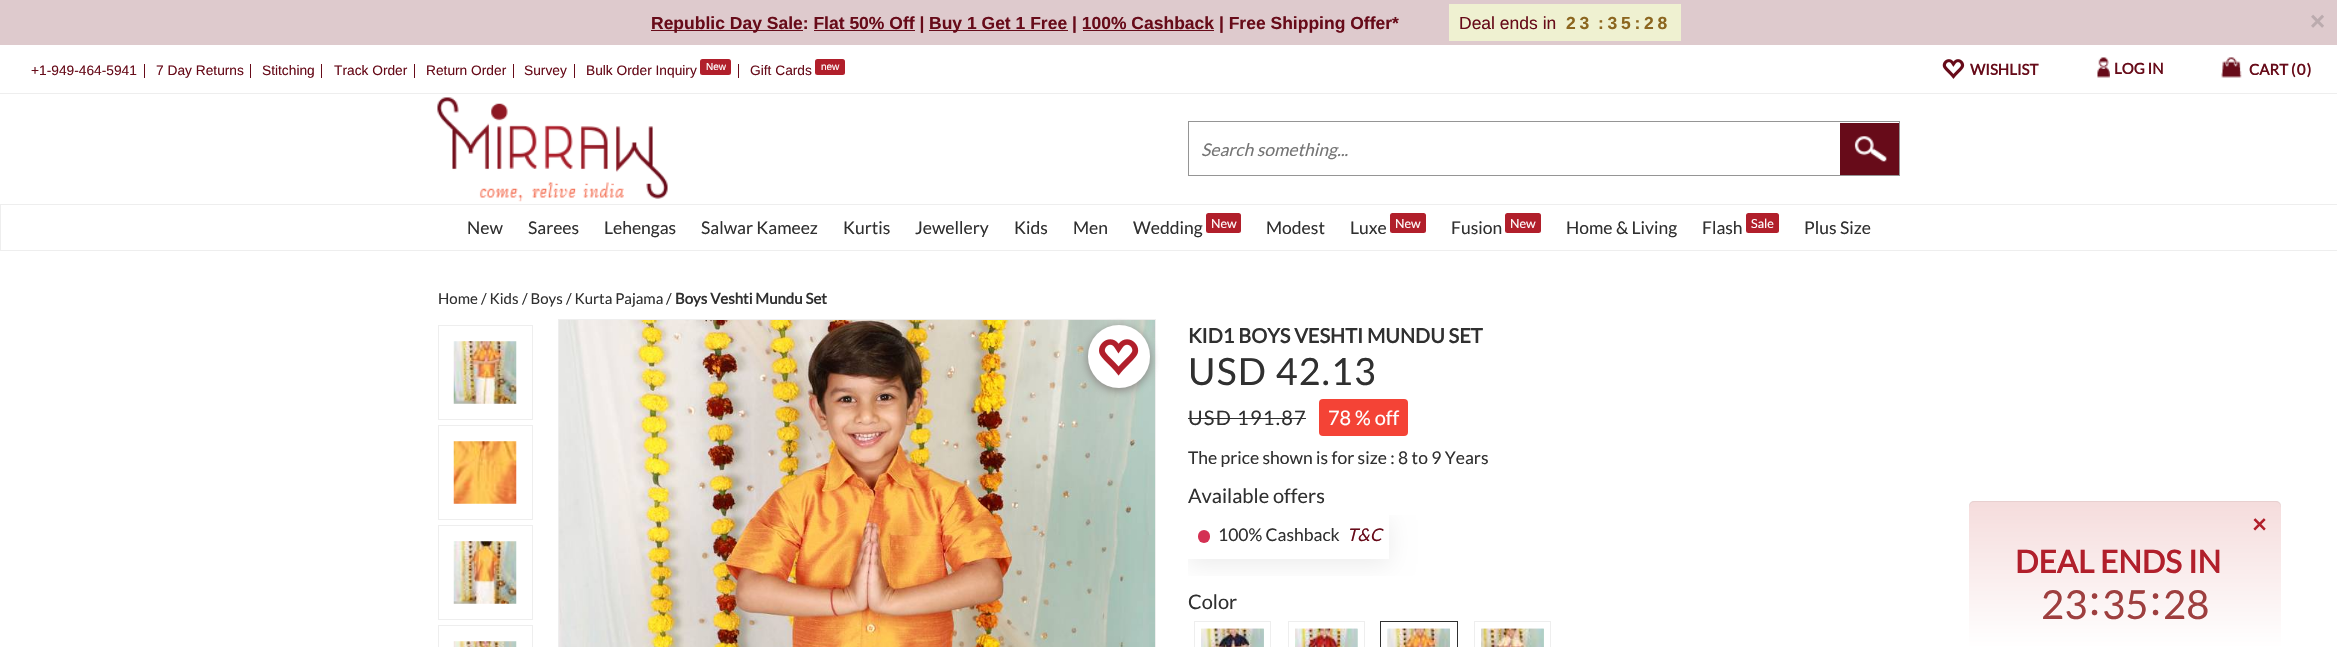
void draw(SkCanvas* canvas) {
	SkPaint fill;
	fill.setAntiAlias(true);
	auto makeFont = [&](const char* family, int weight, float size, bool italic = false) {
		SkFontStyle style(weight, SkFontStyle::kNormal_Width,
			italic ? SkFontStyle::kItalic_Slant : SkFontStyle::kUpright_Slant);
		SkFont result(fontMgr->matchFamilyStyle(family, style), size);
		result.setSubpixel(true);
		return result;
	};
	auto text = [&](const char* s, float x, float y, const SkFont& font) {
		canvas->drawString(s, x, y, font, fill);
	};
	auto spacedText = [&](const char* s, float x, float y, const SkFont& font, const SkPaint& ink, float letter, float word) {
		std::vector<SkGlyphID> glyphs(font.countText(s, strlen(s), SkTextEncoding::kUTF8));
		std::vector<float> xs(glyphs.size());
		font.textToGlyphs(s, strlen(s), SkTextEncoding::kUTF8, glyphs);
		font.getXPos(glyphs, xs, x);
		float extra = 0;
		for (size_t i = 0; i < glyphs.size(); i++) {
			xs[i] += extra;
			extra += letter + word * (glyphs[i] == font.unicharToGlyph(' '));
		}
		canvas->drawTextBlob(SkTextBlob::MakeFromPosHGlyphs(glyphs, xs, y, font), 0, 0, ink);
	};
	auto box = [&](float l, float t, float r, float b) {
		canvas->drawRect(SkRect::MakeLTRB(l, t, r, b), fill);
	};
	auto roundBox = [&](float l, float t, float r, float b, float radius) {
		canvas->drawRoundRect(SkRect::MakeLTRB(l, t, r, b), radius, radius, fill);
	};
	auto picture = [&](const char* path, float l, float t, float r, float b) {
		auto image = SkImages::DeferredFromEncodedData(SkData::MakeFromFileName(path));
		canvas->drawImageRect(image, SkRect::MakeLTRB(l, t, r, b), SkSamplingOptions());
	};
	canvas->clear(0xFFFFFFFF);
	fill.setColor(0xFFDECACD);
	box(0, 0, 2337, 45);
	fill.setColor(0xFF670B19);
	box(651, 30, 803, 31);
	box(929, 30, 1068, 31);
	box(814, 30, 915, 31);
	box(1083, 30, 1214, 31);
	fill.setColor(0xFFEFF1D1);
	box(1449, 4, 1681, 41);
	fill.setColor(0xFFEEEEEE);
	box(0, 93, 2337, 94);
	fill.setColor(0xFF670B19);
	box(144, 64, 145, 78);
	box(250, 64, 251, 78);
	box(321, 64, 322, 78);
	box(414, 64, 415, 78);
	box(513, 64, 514, 78);
	box(574, 64, 575, 78);
	box(738, 64, 739, 78);
	fill.setColor(0xFFB11F2B);
	roundBox(700, 59, 731, 75, 2.5f);
	roundBox(815, 59, 845, 75, 2.5f);
	picture("image0.png", 1942, 59, 1965, 79);
	picture("image1.png", 2097, 57, 2110, 78);
	picture("image2.png", 2221, 57, 2242, 78);
	picture("image3.png", 437, 97, 668, 202);
	fill.setStyle(SkPaint::kStroke_Style);
	fill.setStrokeWidth(1);
	fill.setColor(0xFF959595);
	canvas->drawRect(SkRect::MakeLTRB(1188.5f, 121.5f, 1899.5f, 175.5f), fill);
	fill.setStyle(SkPaint::kFill_Style);
	fill.setColor(0xFF670B19);
	box(1840, 123, 1899, 175);
	picture("image4.png", 1854, 136, 1887, 162);
	fill.setStyle(SkPaint::kStroke_Style);
	fill.setColor(0xFFEEEEEE);
	canvas->drawRect(SkRect::MakeLTRB(0.5f, 204.5f, 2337.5f, 250.5f), fill);
	fill.setStyle(SkPaint::kFill_Style);
	fill.setColor(0xFFB11F2B);
	roundBox(1206, 213, 1241, 233, 2.5f);
	roundBox(1390, 213, 1426, 233, 2.5f);
	roundBox(1505, 213, 1541, 233, 2.5f);
	roundBox(1746, 213, 1779, 233, 2.5f);
	fill.setStyle(SkPaint::kStroke_Style);
	fill.setColor(0xFFEEEEEE);
	canvas->drawRect(SkRect::MakeLTRB(438.5f, 325.5f, 532.5f, 419.5f), fill);
	picture("image5.png", 453, 341, 517, 404);
	canvas->drawRect(SkRect::MakeLTRB(438.5f, 425.5f, 532.5f, 519.5f), fill);
	picture("image6.png", 453, 441, 517, 504);
	canvas->drawRect(SkRect::MakeLTRB(438.5f, 525.5f, 532.5f, 619.5f), fill);
	picture("image7.png", 453, 541, 517, 604);
	canvas->drawRect(SkRect::MakeLTRB(438.5f, 625.5f, 532.5f, 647.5f), fill);
	picture("image8.png", 453, 641, 517, 647);
	canvas->drawRect(SkRect::MakeLTRB(558.5f, 319.5f, 1155.5f, 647.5f), fill);
	picture("image10.png", 559, 320, 1155, 647);
	fill.setStyle(SkPaint::kFill_Style);
	fill.setColor(0xBF716767);
	fill.setMaskFilter(SkMaskFilter::MakeBlur(kNormal_SkBlurStyle, 5));
	canvas->drawRoundRect(SkRect::MakeLTRB(1088, 328, 1150, 390), 31, 31, fill);
	fill.setMaskFilter(nullptr);
	fill.setColor(0xFFFFFFFF);
	roundBox(1088, 325, 1150, 388, 31);
	picture("image9.png", 1099, 339, 1139, 376);
	fill.setColor(0xFF303030);
	box(1188, 418, 1306, 419);
	fill.setColor(0xFFF44336);
	roundBox(1319, 399, 1408, 436, 4);
	canvas->save();
	canvas->clipRect(SkRect::MakeLTRB(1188, 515, 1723, 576));
	canvas->clipPath(SkPathBuilder(SkPathFillType::kEvenOdd).moveTo(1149, 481).lineTo(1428, 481).lineTo(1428, 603).lineTo(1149, 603).close().moveTo(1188, 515).lineTo(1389, 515).lineTo(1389, 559).lineTo(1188, 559).close().detach(), true);
	fill.setColor(0x14000000);
	fill.setMaskFilter(SkMaskFilter::MakeBlur(kNormal_SkBlurStyle, 12.5f));
	canvas->drawRect(SkRect::MakeLTRB(1188, 520, 1389, 564), fill);
	fill.setMaskFilter(nullptr);
	canvas->restore();
	fill.setColor(0xFFD43153);
	roundBox(1198, 530, 1210, 543, 6);
	fill.setStyle(SkPaint::kStroke_Style);
	fill.setColor(0xFFEEEEEE);
	canvas->drawRect(SkRect::MakeLTRB(1194.5f, 621.5f, 1270.5f, 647.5f), fill);
	picture("image11.png", 1201, 628, 1264, 647);
	picture("image12.png", 1201, 628, 1264, 647);
	canvas->drawRect(SkRect::MakeLTRB(1288.5f, 621.5f, 1364.5f, 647.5f), fill);
	picture("image13.png", 1295, 628, 1358, 647);
	picture("image14.png", 1295, 628, 1358, 647);
	fill.setColor(0xFF303030);
	canvas->drawRect(SkRect::MakeLTRB(1380.5f, 621.5f, 1457.5f, 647.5f), fill);
	picture("image15.png", 1387, 628, 1450, 647);
	picture("image16.png", 1387, 628, 1450, 647);
	fill.setColor(0xFFEEEEEE);
	canvas->drawRect(SkRect::MakeLTRB(1474.5f, 621.5f, 1550.5f, 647.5f), fill);
	picture("image17.png", 1481, 628, 1544, 647);
	picture("image18.png", 1481, 628, 1544, 647);
	fill.setStyle(SkPaint::kFill_Style);
	{
		const SkColor colors[] = {0xFFF5DCDC, 0xFFFFFFFF};
		const float stops[] = {0, 1};
		const SkPoint ends[] = {{2125, 501}, {2125, 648}};
		fill.setShader(SkGradientShader::MakeLinear(ends, colors, stops, 2, SkTileMode::kClamp));
		fill.setAlpha(255);
	}
	roundBox(1969, 501, 2281, 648, 5);
	fill.setShader(nullptr);
	fill.setColor(0x0D000000);
	canvas->drawPath(SkPathBuilder().moveTo(1974, 502).lineTo(2276, 502).cubicTo(2279, 502, 2281, 505, 2281, 508).lineTo(2281, 506).cubicTo(2281, 503, 2279, 501, 2276, 501).lineTo(1974, 501).cubicTo(1971, 501, 1969, 503, 1969, 506).lineTo(1969, 508).cubicTo(1969, 505, 1971, 502, 1974, 502).close().detach(), fill);
	auto font1 = makeFont("Liberation Sans", 700, 17.5f);
	fill.setColor(0xFF670B19);
	text("Republic Day Sale: Flat 50% Off |", 651, 29, font1);
	text("Buy 1 Get 1 Free | 100% Cashback | Free Shipping Offer*", 929, 29, font1);
	auto font2 = makeFont("Liberation Sans", 400, 17.5f);
	text("Deal ends in", 1459, 29, font2);
	fill.setColor(0xFF8C661F);
	spacedText("23", 1566, 29, font1, fill, 3.75f, 0);
	spacedText(":35:28", 1598, 29, font1, fill, 3.75f, 0);
	auto font3 = makeFont("Liberation Sans", 700, 26);
	fill.setColor(0xFFBBABAE);
	text("×", 2310, 30, font3);
	auto font4 = makeFont("Liberation Sans", 400, 13.75f);
	fill.setColor(0xFF670B19);
	text("+1-949-464-5941", 31, 75, font4);
	text("7 Day Returns", 156, 75, font4);
	text("Stitching", 262, 75, font4);
	text("Track Order", 334, 75, font4);
	text("Return Order", 426, 75, font4);
	text("Survey", 524, 75, font4);
	text("Bulk Order Inquiry", 586, 75, font4);
	auto font5 = makeFont("Liberation Sans", 400, 10);
	fill.setColor(0xFFFFFFFF);
	text("New", 706, 70, font5);
	fill.setColor(0xFF670B19);
	text("Gift Cards", 750, 75, font4);
	fill.setColor(0xFFFFFFFF);
	text("new", 821, 70, font5);
	auto font6 = makeFont("Lato", 700, 15);
	fill.setColor(0xFF670B19);
	text("WISHLIST", 1970, 75, font6);
	text("LOG IN", 2114, 74, font6);
	text("CART", 2249, 75, font6);
	spacedText("(0)", 2291, 75, font6, fill, 1.25f, 0);
	auto font7 = makeFont("Lato", 400, 17.5f, true);
	fill.setColor(0xFF757575);
	text("Search something...", 1201, 156, font7);
	auto font8 = makeFont("Lato", 400, 17.5f);
	fill.setColor(0xFF303030);
	text("New", 467, 234, font8);
	text("Sarees", 528, 234, font8);
	text("Lehengas", 604, 234, font8);
	text("Salwar Kameez", 701, 234, font8);
	text("Kurtis", 843, 234, font8);
	text("Jewellery", 915, 234, font8);
	text("Kids", 1014, 234, font8);
	text("Men", 1073, 234, font8);
	text("Wedding", 1133, 234, font8);
	auto font9 = makeFont("Lato", 400, 12.5f);
	fill.setColor(0xFFFFFFFF);
	text("New", 1211, 228, font9);
	fill.setColor(0xFF303030);
	text("Modest", 1266, 234, font8);
	text("Luxe", 1350, 234, font8);
	fill.setColor(0xFFFFFFFF);
	text("New", 1395, 228, font9);
	fill.setColor(0xFF303030);
	text("Fusion", 1451, 234, font8);
	fill.setColor(0xFFFFFFFF);
	text("New", 1510, 228, font9);
	fill.setColor(0xFF303030);
	text("Home & Living", 1566, 234, font8);
	text("Flash", 1702, 234, font8);
	fill.setColor(0xFFFFFFFF);
	text("Sale", 1751, 228, font9);
	fill.setColor(0xFF303030);
	text("Plus Size", 1804, 234, font8);
	auto font10 = makeFont("Lato", 400, 15);
	text("Home", 438, 304, font10);
	text("/ Kids", 481, 304, font10);
	text("/ Boys", 522, 304, font10);
	text("/ Kurta Pajama", 566, 304, font10);
	text("/", 666, 304, font10);
	text("Boys Veshti Mundu Set", 675, 304, font6);
	auto font11 = makeFont("Lato", 700, 20);
	text("KID1 BOYS VESHTI MUNDU SET", 1188, 343, font11);
	auto font12 = makeFont("Lato", 400, 37.5f);
	spacedText("USD 42.13", 1188, 385, font12, fill, 1.25f, 0);
	auto font13 = makeFont("Lato", 400, 20);
	spacedText("USD 191.87", 1188, 425, font13, fill, 1.25f, 0);
	fill.setColor(0xFFFFFFFF);
	text("78 % off", 1328, 425, font13);
	fill.setColor(0xFF303030);
	text("The price shown is for size : 8 to 9 Years", 1188, 464, font8);
	text("Available offers", 1188, 503, font13);
	text("100% Cashback", 1218, 541, font8);
	fill.setColor(0xFF670B19);
	text("T&C", 1347, 541, font7);
	fill.setColor(0xFF303030);
	text("Color", 1188, 609, font13);
	auto font14 = makeFont("Lato", 700, 25);
	fill.setColor(0xFFB11F2B);
	text("×", 2252, 533, font14);
	auto font15 = makeFont("Lato", 700, 31.25f);
	text("DEAL ENDS IN", 2015, 573, font15);
	auto font16 = makeFont("Lato", 400, 40);
	fill.setColor(0xFF9E3F3F);
	text("23", 2041, 619, font16);
	auto font17 = makeFont("Lato", 400, 44);
	text(":", 2089, 615, font17);
	text("35", 2102, 619, font16);
	text(":", 2150, 615, font17);
	text("28", 2163, 619, font16);
}
